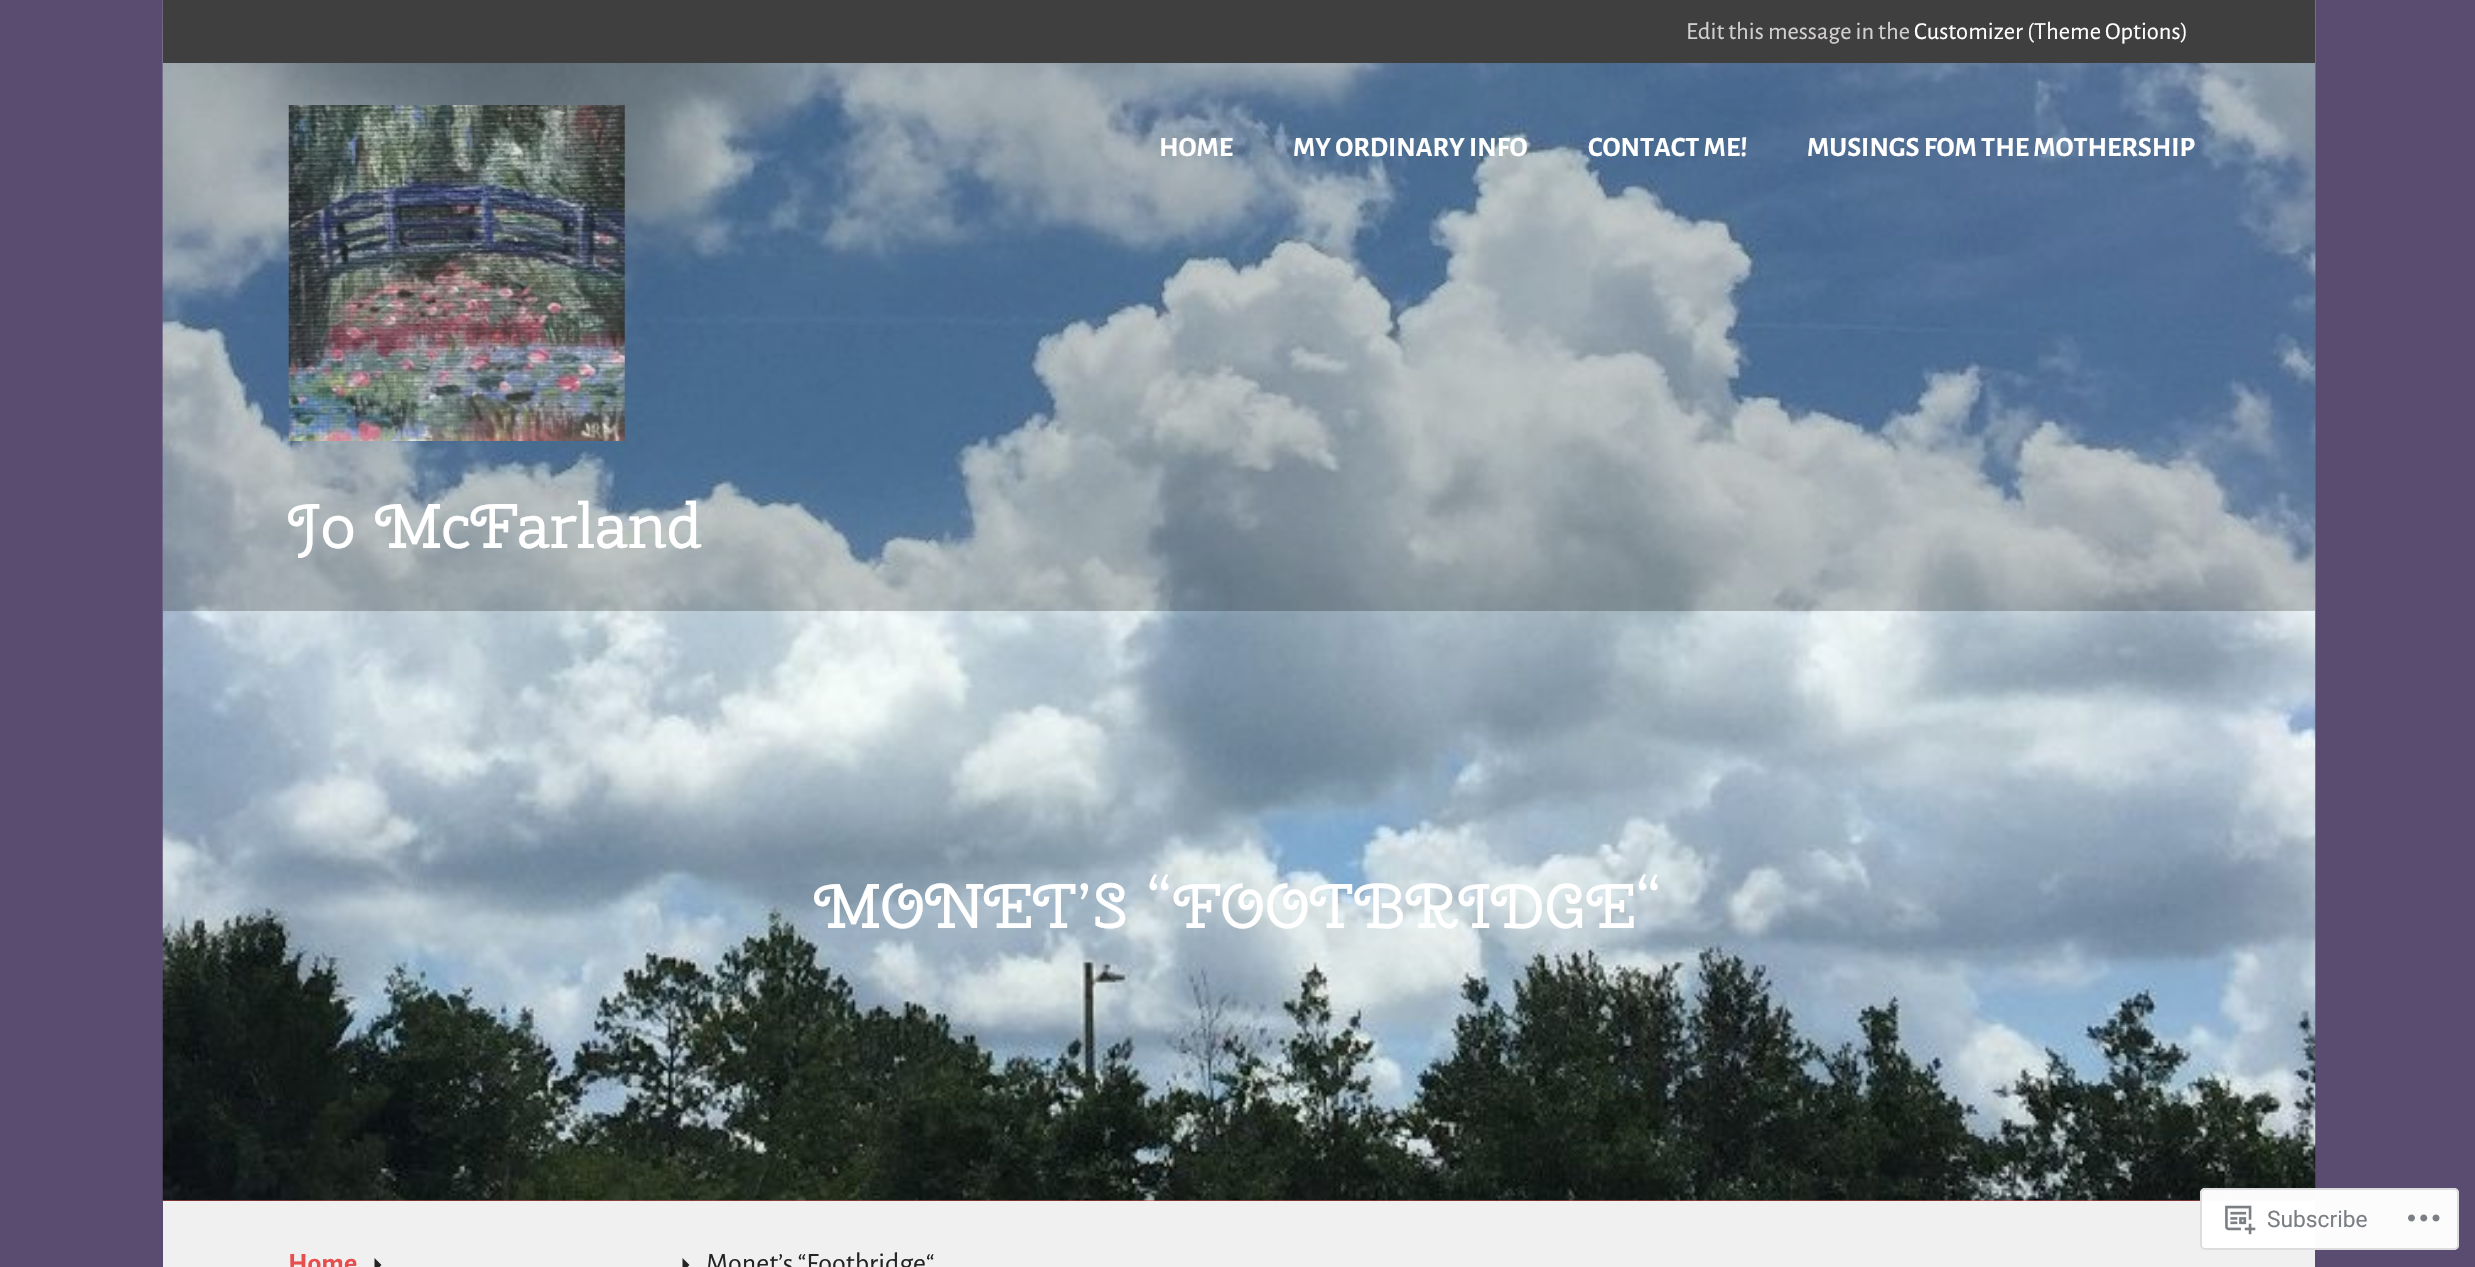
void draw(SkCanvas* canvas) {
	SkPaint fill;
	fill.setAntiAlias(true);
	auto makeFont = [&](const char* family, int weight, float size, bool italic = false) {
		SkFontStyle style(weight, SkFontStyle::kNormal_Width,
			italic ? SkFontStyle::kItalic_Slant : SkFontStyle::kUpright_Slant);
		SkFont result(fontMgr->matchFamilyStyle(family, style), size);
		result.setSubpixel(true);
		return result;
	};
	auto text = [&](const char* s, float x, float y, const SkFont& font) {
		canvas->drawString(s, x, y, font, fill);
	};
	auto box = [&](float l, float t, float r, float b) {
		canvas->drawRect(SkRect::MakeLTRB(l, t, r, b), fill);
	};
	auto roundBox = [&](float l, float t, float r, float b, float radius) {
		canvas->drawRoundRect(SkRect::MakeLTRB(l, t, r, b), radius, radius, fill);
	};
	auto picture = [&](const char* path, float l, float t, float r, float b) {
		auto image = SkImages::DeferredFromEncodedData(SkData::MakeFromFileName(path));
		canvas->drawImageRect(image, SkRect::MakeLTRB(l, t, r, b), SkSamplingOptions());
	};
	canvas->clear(0xFF594C70);
	fill.setColor(0xFFE74F4E);
	box(163, 1200, 2315, 1201);
	picture("image1.png", 162, 0, 2316, 1201);
	fill.setColor(0x38000000);
	box(163, 63, 2315, 611);
	fill.setColor(0xFF403F3F);
	box(163, 0, 2315, 63);
	picture("image0.png", 288, 105, 625, 441);
	fill.setColor(0xFFF1F0F0);
	box(163, 1201, 2315, 1267);
	fill.setColor(0xFF242424);
	canvas->drawPath(SkPathBuilder().moveTo(374.5f, 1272).lineTo(374.5f, 1258).lineTo(381.5f, 1265).close().detach(), fill);
	canvas->drawPath(SkPathBuilder().moveTo(682.5f, 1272).lineTo(682.5f, 1258).lineTo(689.5f, 1265).close().detach(), fill);
	fill.setColor(0xFAFFFFFF);
	roundBox(2200, 1188, 2459, 1250, 5);
	fill.setStyle(SkPaint::kStroke_Style);
	fill.setStrokeWidth(2);
	fill.setColor(0xFADCDCDE);
	canvas->drawRoundRect(SkRect::MakeLTRB(2201, 1189, 2458, 1249), 4, 4, fill);
	picture("image2.png", 2225, 1205, 2256, 1235);
	picture("image3.png", 2408, 1214, 2440, 1222);
	auto font1 = makeFont("Alegreya Sans", 400, 24.5f);
	fill.setStyle(SkPaint::kFill_Style);
	fill.setColor(0xFFD2CFCF);
	text("Edit this message in the", 1686, 39, font1);
	fill.setColor(0xFFFFFFFF);
	text("Customizer (Theme Options)", 1914, 39, font1);
	auto font2 = makeFont("Alegreya Sans", 700, 28);
	text("HOME", 1159, 156, font2);
	text("MY ORDINARY INFO", 1293, 156, font2);
	text("CONTACT ME!", 1588, 156, font2);
	text("MUSINGS FOM THE MOTHERSHIP", 1807, 156, font2);
	auto font3 = makeFont("Cherry Swash", 400, 63);
	text("Jo McFarland", 288, 548, font3);
	text("MONET’S “FOOTBRIDGE“", 814, 928, font3);
	fill.setColor(0xFFE74F4E);
	text("Home", 288, 1272, font2);
	auto font4 = makeFont("Alegreya Sans", 400, 28);
	fill.setColor(0xFF242424);
	text("Monet’s “Footbridge“", 706, 1272, font4);
	auto font5 = makeFont("Roboto", 400, 22.75f);
	fill.setColor(0xFF7B7F84);
	text("Subscribe", 2267, 1227, font5);
}
